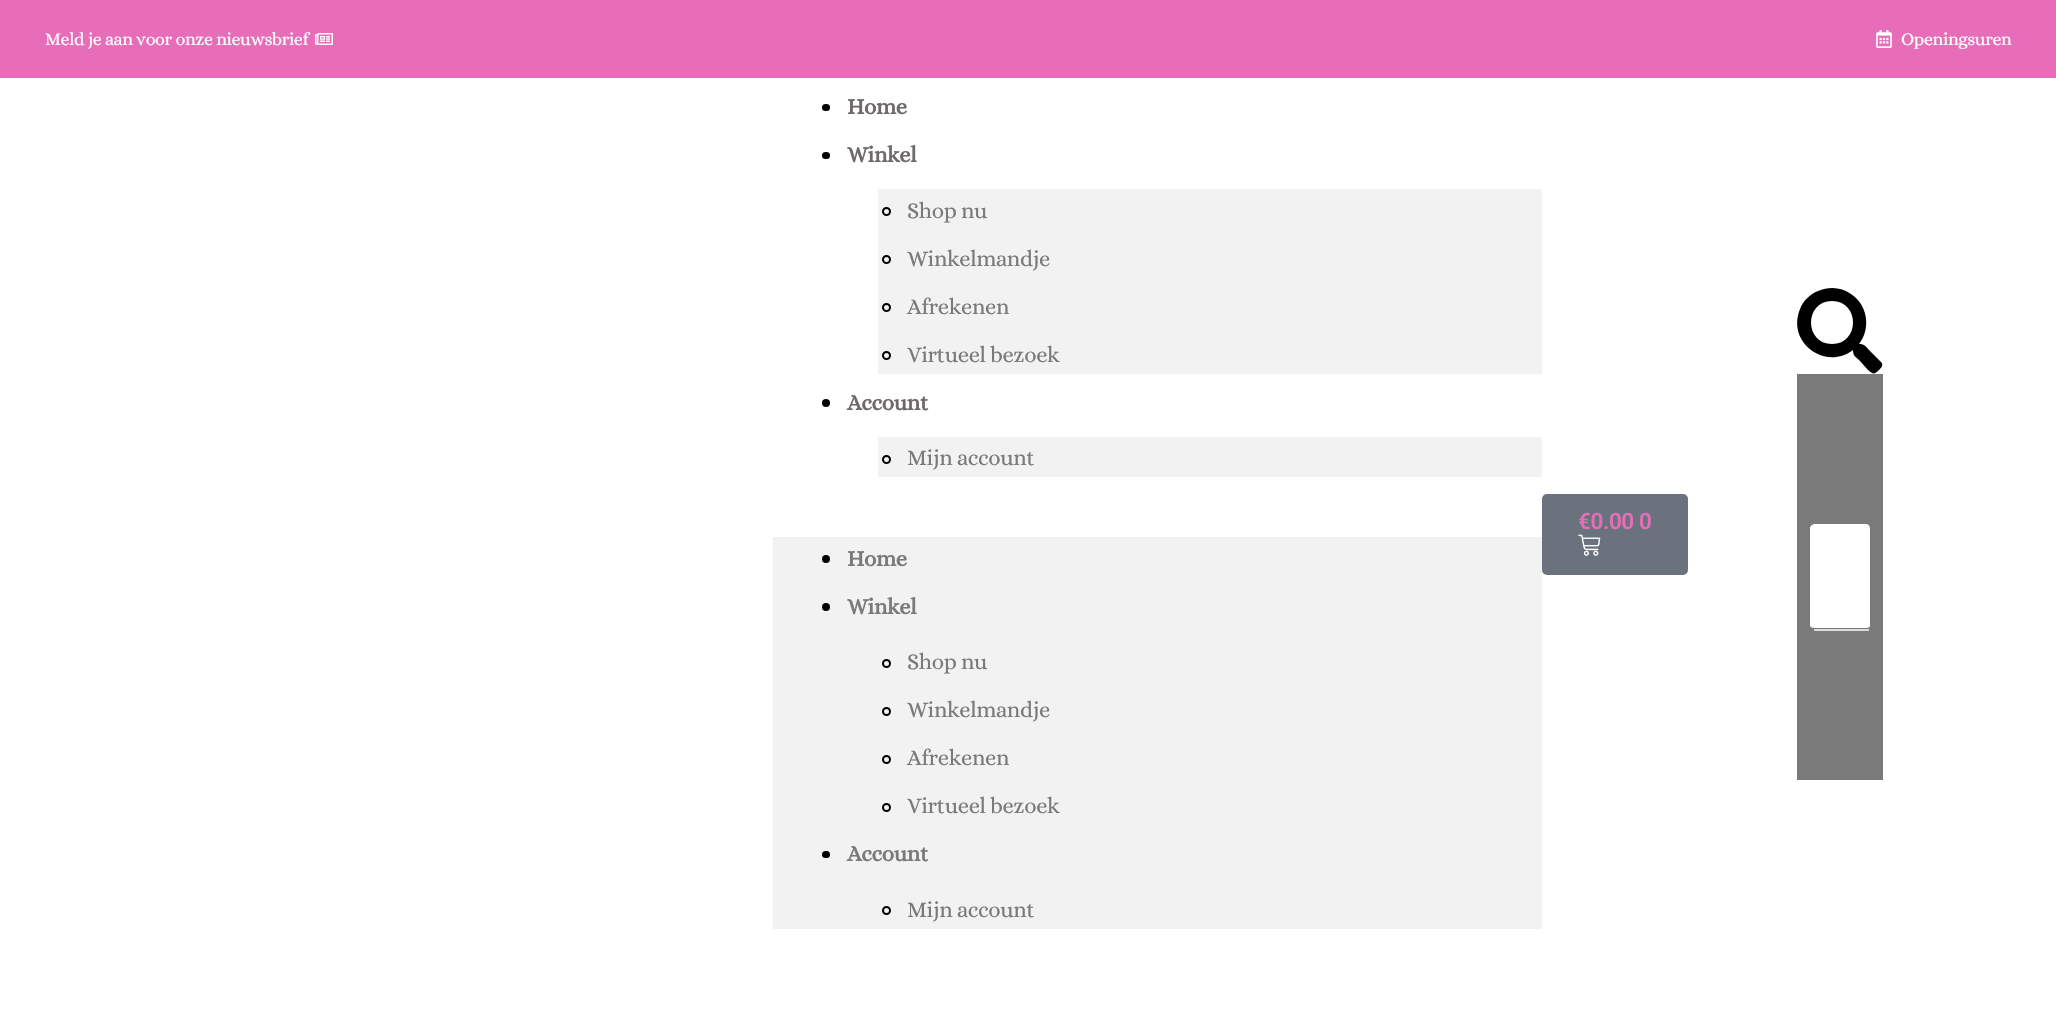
void draw(SkCanvas* canvas) {
	SkPaint fill;
	fill.setAntiAlias(true);
	auto makeFont = [&](const char* family, int weight, float size, bool italic = false) {
		SkFontStyle style(weight, SkFontStyle::kNormal_Width,
			italic ? SkFontStyle::kItalic_Slant : SkFontStyle::kUpright_Slant);
		SkFont result(fontMgr->matchFamilyStyle(family, style), size);
		result.setSubpixel(true);
		return result;
	};
	auto spacedText = [&](const char* s, float x, float y, const SkFont& font, const SkPaint& ink, float letter, float word) {
		std::vector<SkGlyphID> glyphs(font.countText(s, strlen(s), SkTextEncoding::kUTF8));
		std::vector<float> xs(glyphs.size());
		font.textToGlyphs(s, strlen(s), SkTextEncoding::kUTF8, glyphs);
		font.getXPos(glyphs, xs, x);
		float extra = 0;
		for (size_t i = 0; i < glyphs.size(); i++) {
			xs[i] += extra;
			extra += letter + word * (glyphs[i] == font.unicharToGlyph(' '));
		}
		canvas->drawTextBlob(SkTextBlob::MakeFromPosHGlyphs(glyphs, xs, y, font), 0, 0, ink);
	};
	auto box = [&](float l, float t, float r, float b) {
		canvas->drawRect(SkRect::MakeLTRB(l, t, r, b), fill);
	};
	auto roundBox = [&](float l, float t, float r, float b, float radius) {
		canvas->drawRoundRect(SkRect::MakeLTRB(l, t, r, b), radius, radius, fill);
	};
	auto picture = [&](const char* path, float l, float t, float r, float b) {
		auto image = SkImages::DeferredFromEncodedData(SkData::MakeFromFileName(path));
		canvas->drawImageRect(image, SkRect::MakeLTRB(l, t, r, b), SkSamplingOptions());
	};
	canvas->clear(0xFFFFFFFF);
	fill.setColor(0xFFE76DB8);
	box(0, 0, 2056, 78);
	picture("image0.png", 315, 33, 333, 45);
	picture("image1.png", 1876, 30, 1892, 48);
	fill.setColor(0xFF000000);
	roundBox(822, 104, 830, 111, 3.5f);
	roundBox(822, 152, 830, 159, 3.5f);
	fill.setColor(0xFFF2F2F2);
	box(878, 189, 1542, 374);
	fill.setStyle(SkPaint::kStroke_Style);
	fill.setStrokeWidth(2);
	fill.setColor(0xFF000000);
	canvas->drawCircle(886.5f, 211.5f, 3.5f, fill);
	canvas->drawCircle(886.5f, 259.5f, 3.5f, fill);
	canvas->drawCircle(886.5f, 307.5f, 3.5f, fill);
	canvas->drawCircle(886.5f, 355.5f, 3.5f, fill);
	fill.setStyle(SkPaint::kFill_Style);
	canvas->drawCircle(826, 403, 4, fill);
	fill.setColor(0xFFF2F2F2);
	box(878, 437, 1542, 477);
	fill.setStyle(SkPaint::kStroke_Style);
	fill.setColor(0xFF000000);
	canvas->drawCircle(886.5f, 459.5f, 3.5f, fill);
	fill.setStyle(SkPaint::kFill_Style);
	fill.setColor(0xFFF2F2F2);
	box(773, 537, 1542, 929);
	fill.setColor(0xFF000000);
	canvas->drawCircle(826, 559, 4, fill);
	canvas->drawCircle(826, 607, 4, fill);
	fill.setStyle(SkPaint::kStroke_Style);
	canvas->drawCircle(886.5f, 663.5f, 3.5f, fill);
	canvas->drawCircle(886.5f, 711.5f, 3.5f, fill);
	canvas->drawCircle(886.5f, 759.5f, 3.5f, fill);
	canvas->drawCircle(886.5f, 807.5f, 3.5f, fill);
	fill.setStyle(SkPaint::kFill_Style);
	roundBox(822, 851, 830, 858, 3.5f);
	fill.setStyle(SkPaint::kStroke_Style);
	canvas->drawCircle(886.5f, 910.5f, 3.5f, fill);
	fill.setStyle(SkPaint::kFill_Style);
	fill.setColor(0xFF69727D);
	roundBox(1542, 494, 1688, 575, 5);
	picture("image2.png", 1578, 534, 1601, 556);
	fill.setColor(0xFF000000);
	canvas->drawPath(SkPathBuilder().moveTo(1881, 362).lineTo(1870, 351).cubicTo(1865, 346, 1865, 344, 1859, 344).cubicTo(1871, 329, 1868, 305, 1851, 294).cubicTo(1842, 287, 1829, 286, 1818, 291).cubicTo(1810, 294, 1803, 301, 1800, 309).cubicTo(1786, 343, 1826, 371, 1853, 350).cubicTo(1853, 356, 1855, 356, 1860, 361).lineTo(1868, 370).cubicTo(1873, 374, 1874, 375, 1879, 370).cubicTo(1881, 368, 1884, 365, 1881, 362).close().moveTo(1832, 344).cubicTo(1804, 344, 1804, 301, 1832, 301).cubicTo(1860, 301, 1860, 344, 1832, 344).close().detach(), fill);
	fill.setColor(0xFF7A7A7A);
	box(1797, 374, 1883, 780);
	fill.setColor(0xFFFFFFFF);
	canvas->drawPath(SkPathBuilder().moveTo(1815, 524).lineTo(1866, 524).cubicTo(1868, 524, 1870, 526, 1870, 528).lineTo(1870, 626).cubicTo(1870, 627, 1868, 628, 1866, 628).lineTo(1815, 628).cubicTo(1813, 628, 1810, 627, 1810, 626).lineTo(1810, 528).cubicTo(1810, 526, 1813, 524, 1815, 524).close().detach(), fill);
	fill.setColor(0xFFDBDBDB);
	box(1814, 629, 1869, 631);
	auto font1 = makeFont("Alice", 400, 18);
	fill.setColor(0xFFFFFFFF);
	spacedText("Meld je aan voor onze nieuwsbrief", 45, 45, font1, fill, -0.4f, 0);
	spacedText("Openingsuren", 1901, 45, font1, fill, -0.4f, 0);
	auto font2 = makeFont("Alice", 700, 22.5f);
	fill.setColor(0xFF6E696B);
	spacedText("Home", 847, 114, font2, fill, -0.4f, 0);
	spacedText("Winkel", 847, 162, font2, fill, -0.4f, 0);
	auto font3 = makeFont("Alice", 400, 22.5f);
	fill.setColor(0xFF7A7A7A);
	spacedText("Shop nu", 907, 218, font3, fill, -0.4f, 0);
	spacedText("Winkelmandje", 907, 266, font3, fill, -0.4f, 0);
	spacedText("Afrekenen", 907, 314, font3, fill, -0.4f, 0);
	spacedText("Virtueel bezoek", 907, 362, font3, fill, -0.4f, 0);
	fill.setColor(0xFF6E696B);
	spacedText("Account", 847, 410, font2, fill, -0.4f, 0);
	fill.setColor(0xFF7A7A7A);
	spacedText("Mijn account", 907, 465, font3, fill, -0.4f, 0);
	spacedText("Home", 847, 566, font2, fill, -0.4f, 0);
	spacedText("Winkel", 847, 614, font2, fill, -0.4f, 0);
	spacedText("Shop nu", 907, 669, font3, fill, -0.4f, 0);
	spacedText("Winkelmandje", 907, 717, font3, fill, -0.4f, 0);
	spacedText("Afrekenen", 907, 765, font3, fill, -0.4f, 0);
	spacedText("Virtueel bezoek", 907, 813, font3, fill, -0.4f, 0);
	spacedText("Account", 847, 861, font2, fill, -0.4f, 0);
	spacedText("Mijn account", 907, 917, font3, fill, -0.4f, 0);
	auto font4 = makeFont("Roboto", 600, 22.5f);
	fill.setColor(0xFFE76DB8);
	spacedText("€0.00 0", 1578, 529, font4, fill, -0.4f, 0);
}
